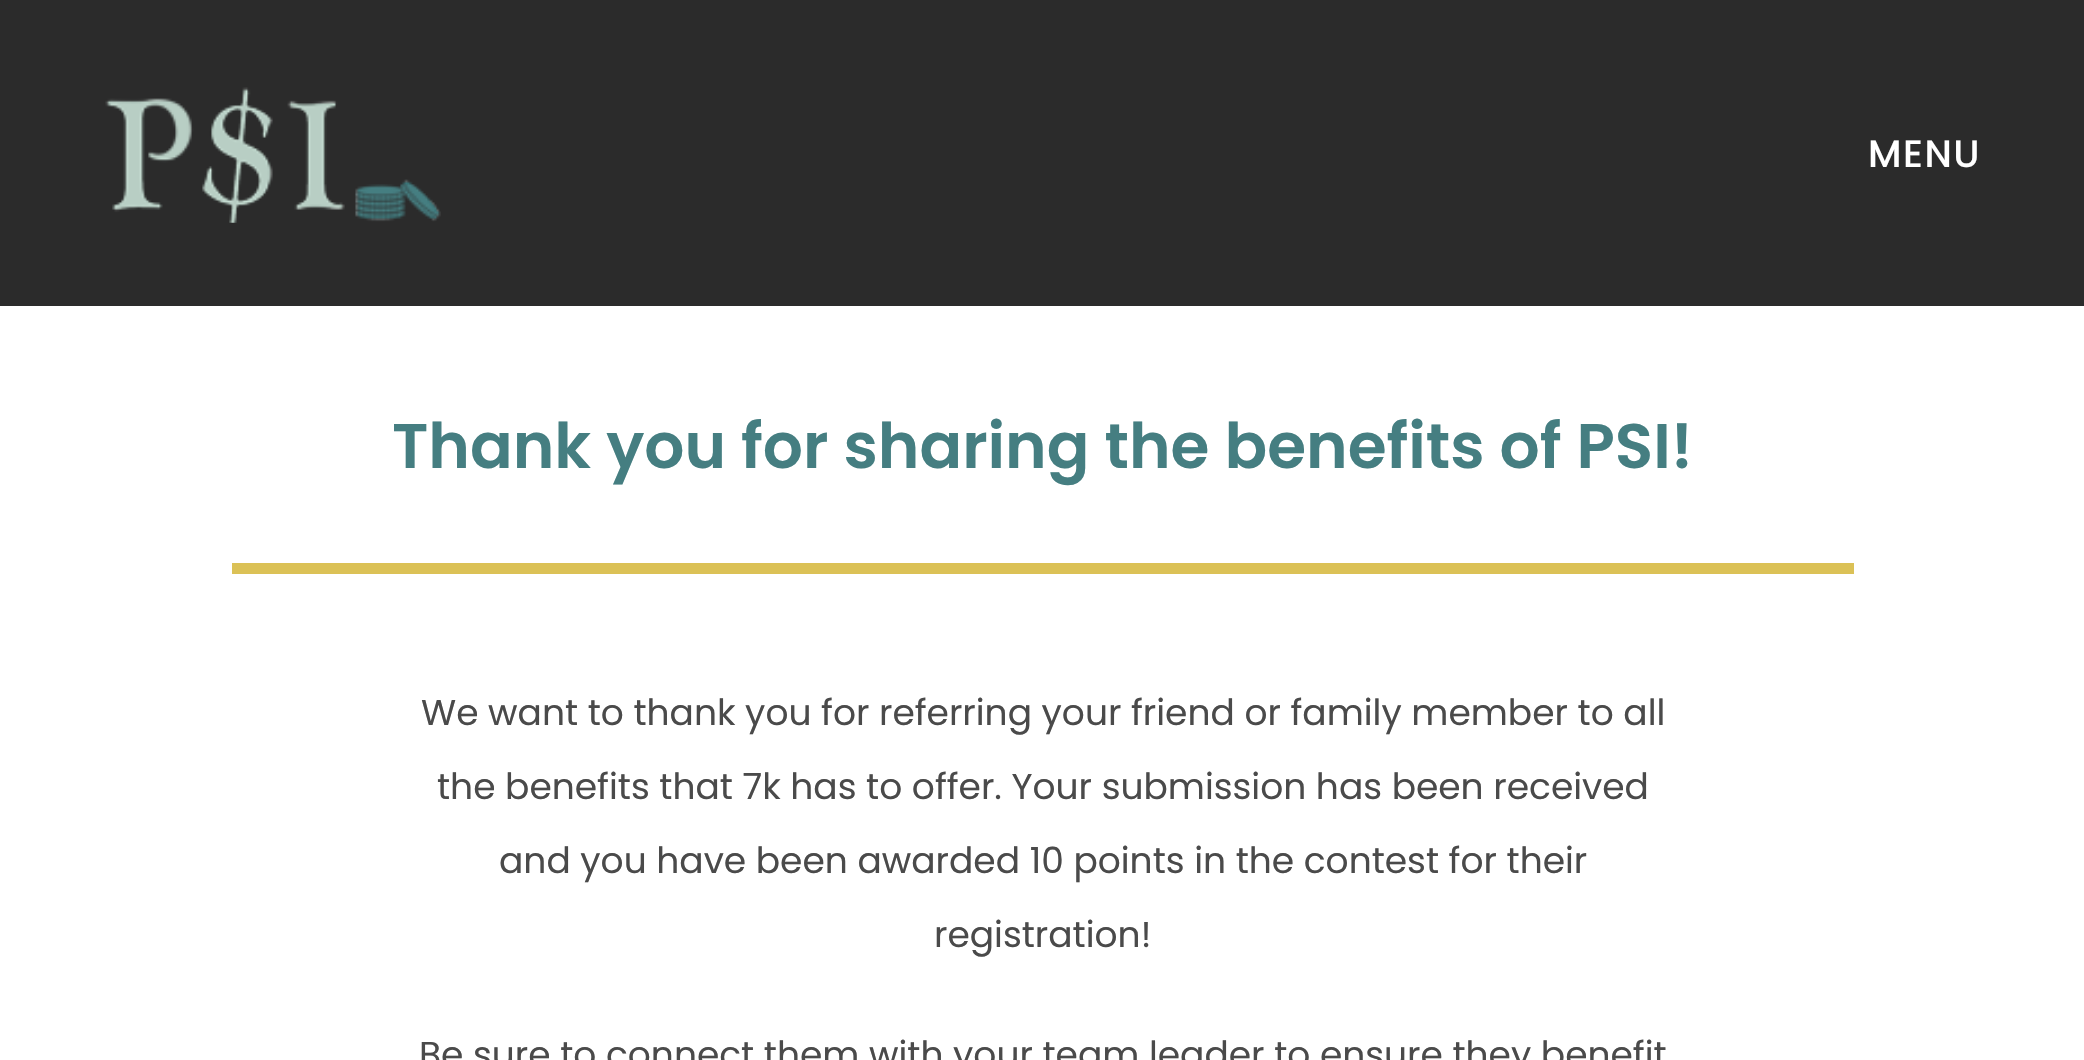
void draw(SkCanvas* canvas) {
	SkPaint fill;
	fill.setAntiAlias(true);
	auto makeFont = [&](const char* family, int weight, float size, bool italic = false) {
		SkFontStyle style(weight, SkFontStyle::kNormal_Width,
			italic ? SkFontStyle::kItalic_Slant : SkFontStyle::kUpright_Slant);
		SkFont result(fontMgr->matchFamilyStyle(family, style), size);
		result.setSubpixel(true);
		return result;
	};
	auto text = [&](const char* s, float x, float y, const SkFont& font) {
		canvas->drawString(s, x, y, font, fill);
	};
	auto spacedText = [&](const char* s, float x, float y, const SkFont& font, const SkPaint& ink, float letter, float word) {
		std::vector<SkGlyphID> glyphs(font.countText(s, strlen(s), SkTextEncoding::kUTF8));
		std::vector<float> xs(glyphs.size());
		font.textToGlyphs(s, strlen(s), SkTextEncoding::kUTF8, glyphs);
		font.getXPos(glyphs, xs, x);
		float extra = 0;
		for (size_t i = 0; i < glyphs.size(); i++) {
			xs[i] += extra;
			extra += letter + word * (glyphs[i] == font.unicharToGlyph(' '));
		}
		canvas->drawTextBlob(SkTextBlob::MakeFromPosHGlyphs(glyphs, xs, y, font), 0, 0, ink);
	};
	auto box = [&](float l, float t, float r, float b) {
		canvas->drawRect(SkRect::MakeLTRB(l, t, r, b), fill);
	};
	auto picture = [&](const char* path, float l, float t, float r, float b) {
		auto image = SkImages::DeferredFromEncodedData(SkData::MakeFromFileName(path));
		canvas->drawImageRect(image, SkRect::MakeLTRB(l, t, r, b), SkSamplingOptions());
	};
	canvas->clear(0xFFFFFFFF);
	fill.setColor(0xFF2B2B2B);
	box(0, 0, 2084, 306);
	picture("image0.png", 105, 87, 441, 223);
	fill.setColor(0xFFDBC156);
	box(232, 563, 1854, 574);
	auto font1 = makeFont("Poppins", 500, 38);
	fill.setColor(0xFFFFFFFF);
	spacedText("MENU", 1868, 167, font1, fill, 1.5f, 0);
	auto font2 = makeFont("Poppins", 600, 63);
	fill.setColor(0xFF457E81);
	text("Thank you for sharing the benefits of PSI!", 392, 468, font2);
	auto font3 = makeFont("Poppins", 400, 36);
	fill.setColor(0xFF4A4A4A);
	text("We want to thank you for referring your friend or family member to all", 421, 725, font3);
	text("the benefits that 7k has to offer. Your submission has been received", 437, 799, font3);
	text("and you have been awarded 10 points in the contest for their", 499, 873, font3);
	text("registration!", 934, 947, font3);
	text("Be sure to connect them with your team leader to ensure they benefit", 419, 1067, font3);
}
